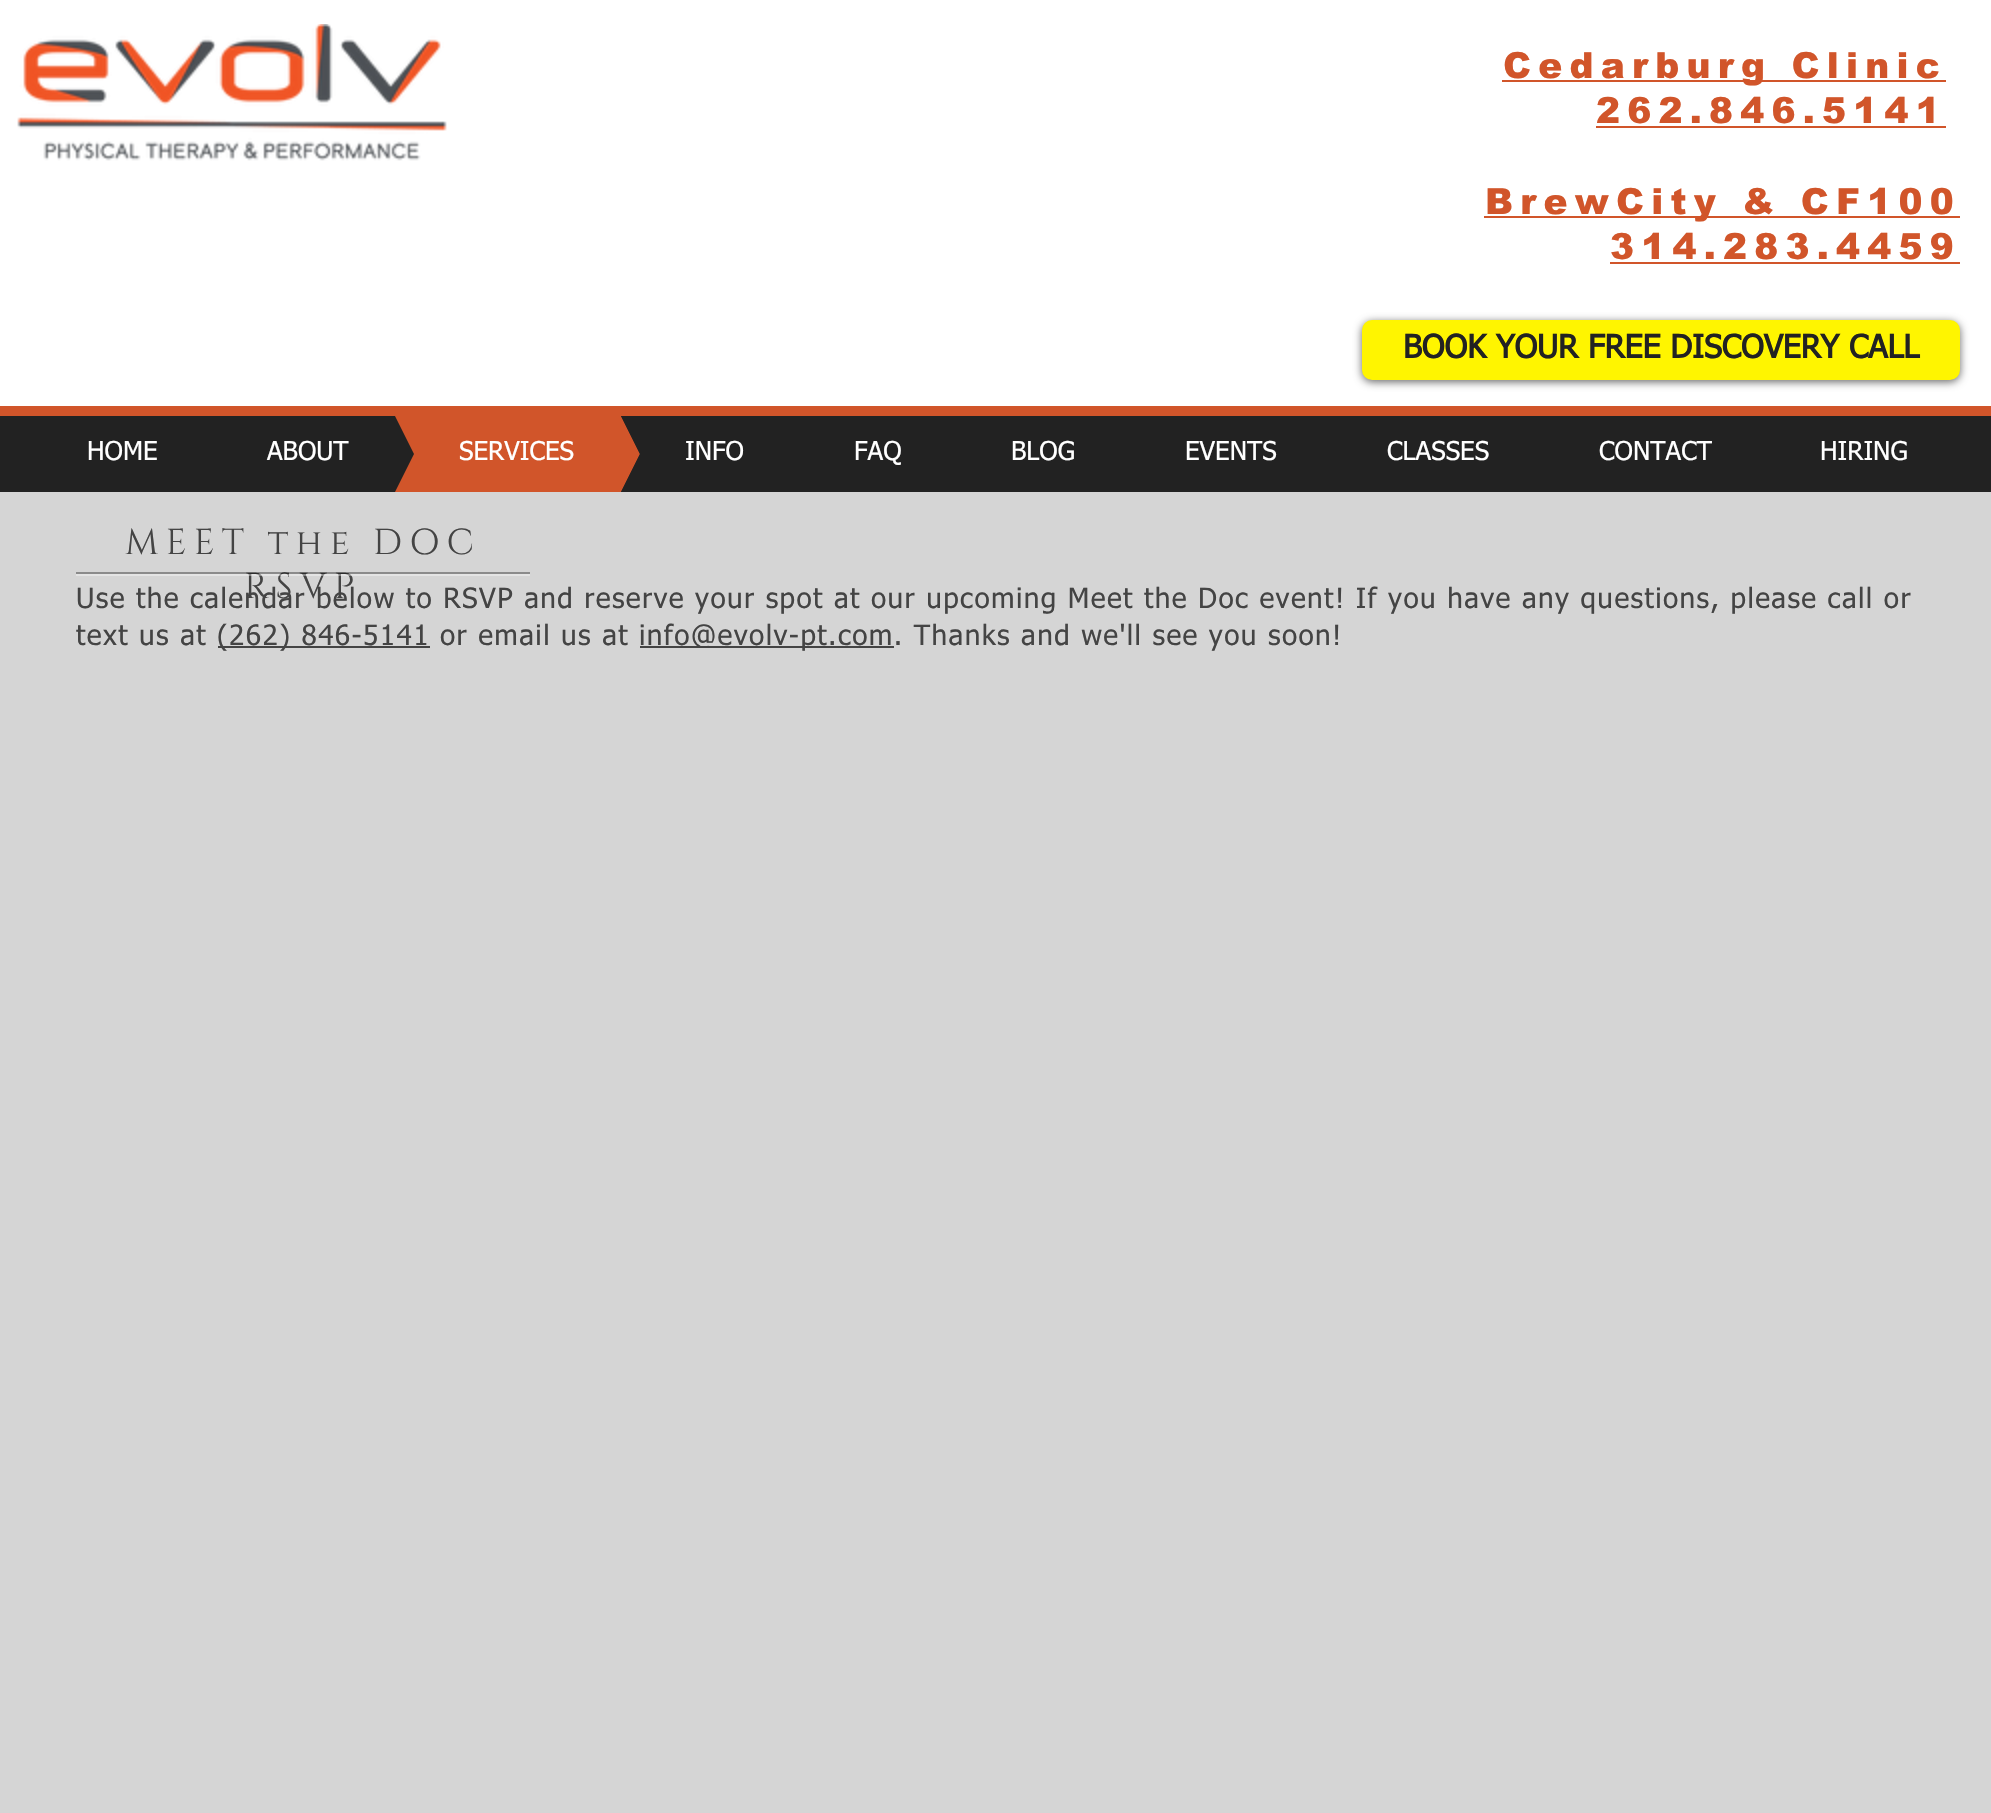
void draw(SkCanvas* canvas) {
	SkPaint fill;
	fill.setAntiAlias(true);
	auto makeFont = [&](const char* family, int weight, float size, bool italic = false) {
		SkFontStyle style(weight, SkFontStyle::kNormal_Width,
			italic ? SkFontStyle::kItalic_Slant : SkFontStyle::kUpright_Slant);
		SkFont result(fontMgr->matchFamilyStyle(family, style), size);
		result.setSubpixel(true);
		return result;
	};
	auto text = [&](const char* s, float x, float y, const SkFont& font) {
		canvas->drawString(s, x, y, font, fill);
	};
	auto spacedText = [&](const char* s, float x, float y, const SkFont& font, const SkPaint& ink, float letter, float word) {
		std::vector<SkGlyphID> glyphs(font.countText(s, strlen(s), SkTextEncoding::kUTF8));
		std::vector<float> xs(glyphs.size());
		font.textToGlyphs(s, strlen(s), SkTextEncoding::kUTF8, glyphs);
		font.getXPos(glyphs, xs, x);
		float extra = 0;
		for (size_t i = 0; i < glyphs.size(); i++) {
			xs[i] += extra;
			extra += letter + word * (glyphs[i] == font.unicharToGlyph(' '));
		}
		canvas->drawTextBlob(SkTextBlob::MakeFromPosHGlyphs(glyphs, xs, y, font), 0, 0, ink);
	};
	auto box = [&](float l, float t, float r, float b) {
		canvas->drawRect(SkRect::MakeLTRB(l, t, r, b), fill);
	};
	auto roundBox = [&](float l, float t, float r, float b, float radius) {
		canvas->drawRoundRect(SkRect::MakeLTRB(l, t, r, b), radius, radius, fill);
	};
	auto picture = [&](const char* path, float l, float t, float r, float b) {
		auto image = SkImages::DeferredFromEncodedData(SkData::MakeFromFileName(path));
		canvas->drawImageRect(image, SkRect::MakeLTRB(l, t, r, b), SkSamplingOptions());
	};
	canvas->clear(0xFFD5D5D5);
	fill.setColor(0xFFFFFFFF);
	box(0, 0, 1991, 406);
	picture("image0.png", 17, 24, 447, 161);
	fill.setColor(0xFFD1552A);
	box(1502, 80, 1946, 82);
	box(1596, 126, 1946, 128);
	box(1484, 216, 1960, 218);
	box(1610, 262, 1960, 264);
	fill.setColor(0x99000000);
	fill.setMaskFilter(SkMaskFilter::MakeBlur(kNormal_SkBlurStyle, 4));
	canvas->drawRoundRect(SkRect::MakeLTRB(1362, 322, 1960, 382), 10, 10, fill);
	fill.setMaskFilter(nullptr);
	fill.setColor(0xFFFFF500);
	roundBox(1362, 320, 1960, 380, 10);
	fill.setColor(0xFF222222);
	box(0, 416, 1991, 492);
	fill.setColor(0xFFD1552A);
	box(0, 406, 1991, 416);
	canvas->save();
	canvas->clipRect(SkRect::MakeLTRB(274, 416, 414, 492));
	canvas->drawPath(SkPathBuilder().moveTo(274, 174).lineTo(414, 174).lineTo(414, 454).close().detach(), fill);
	canvas->drawPath(SkPathBuilder().moveTo(414, 734).lineTo(274, 734).lineTo(414, 454).close().detach(), fill);
	canvas->restore();
	box(414, 416, 500, 492);
	canvas->save();
	canvas->clipRect(SkRect::MakeLTRB(500, 416, 640, 492));
	canvas->drawPath(SkPathBuilder().moveTo(640, 454).lineTo(500, 454).lineTo(500, 174).close().detach(), fill);
	canvas->drawPath(SkPathBuilder().moveTo(500, 454).lineTo(640, 454).lineTo(500, 734).close().detach(), fill);
	fill.setColor(0xFF222222);
	canvas->drawPath(SkPathBuilder().moveTo(500, 174).lineTo(640, 174).lineTo(640, 454).close().detach(), fill);
	canvas->drawPath(SkPathBuilder().moveTo(640, 734).lineTo(500, 734).lineTo(640, 454).close().detach(), fill);
	canvas->restore();
	fill.setColor(0xFF444444);
	box(218, 646, 430, 648);
	box(640, 646, 894, 648);
	auto font1 = makeFont("arial", 900, 36);
	fill.setColor(0xFFD1552A);
	spacedText("Cedarburg Clinic", 1503, 78, font1, fill, 7.25f, 0);
	spacedText("262.846.5141", 1596, 123, font1, fill, 7.25f, 0);
	spacedText("BrewCity & CF100", 1485, 214, font1, fill, 7.25f, 0);
	spacedText("314.283.4459", 1610, 259, font1, fill, 7.25f, 0);
	auto font2 = makeFont("tahoma", 700, 32);
	fill.setColor(0xFF222222);
	text("BOOK YOUR FREE DISCOVERY CALL", 1403, 358, font2);
	auto font3 = makeFont("tahoma", 400, 26);
	fill.setColor(0xFFFFFFFF);
	text("HOME", 87, 460, font3);
	text("ABOUT", 267, 460, font3);
	text("SERVICES", 459, 460, font3);
	text("INFO", 685, 460, font3);
	text("FAQ", 854, 460, font3);
	text("BLOG", 1011, 460, font3);
	text("EVENTS", 1185, 460, font3);
	text("CLASSES", 1387, 460, font3);
	text("CONTACT", 1599, 460, font3);
	text("HIRING", 1820, 460, font3);
	auto font4 = makeFont("Cinzel", 400, 36);
	fill.setColor(0xFF444444);
	spacedText("MEET the DOC", 125, 554, font4, fill, 7.25f, 0);
	spacedText("RSVP", 244, 598, font4, fill, 7.25f, 0);
	fill.setColor(0x59000000);
	box(76, 572, 530, 574);
	fill.setColor(0x59FFFFFF);
	box(76, 574, 530, 576);
	auto font5 = makeFont("tahoma", 400, 28);
	fill.setColor(0xFF444444);
	spacedText("Use the calendar below to RSVP and reserve your spot at our upcoming Meet the Doc event! If you have any questions, please call or", 76, 608, font5, fill, 1.4f, 0);
	spacedText("text us at", 76, 645, font5, fill, 1.4f, 0);
	spacedText("(262) 846-5141 or email us at", 217, 645, font5, fill, 1.4f, 0);
	spacedText("info@evolv-pt.com. Thanks and we'll see you soon!", 639, 645, font5, fill, 1.4f, 0);
}
